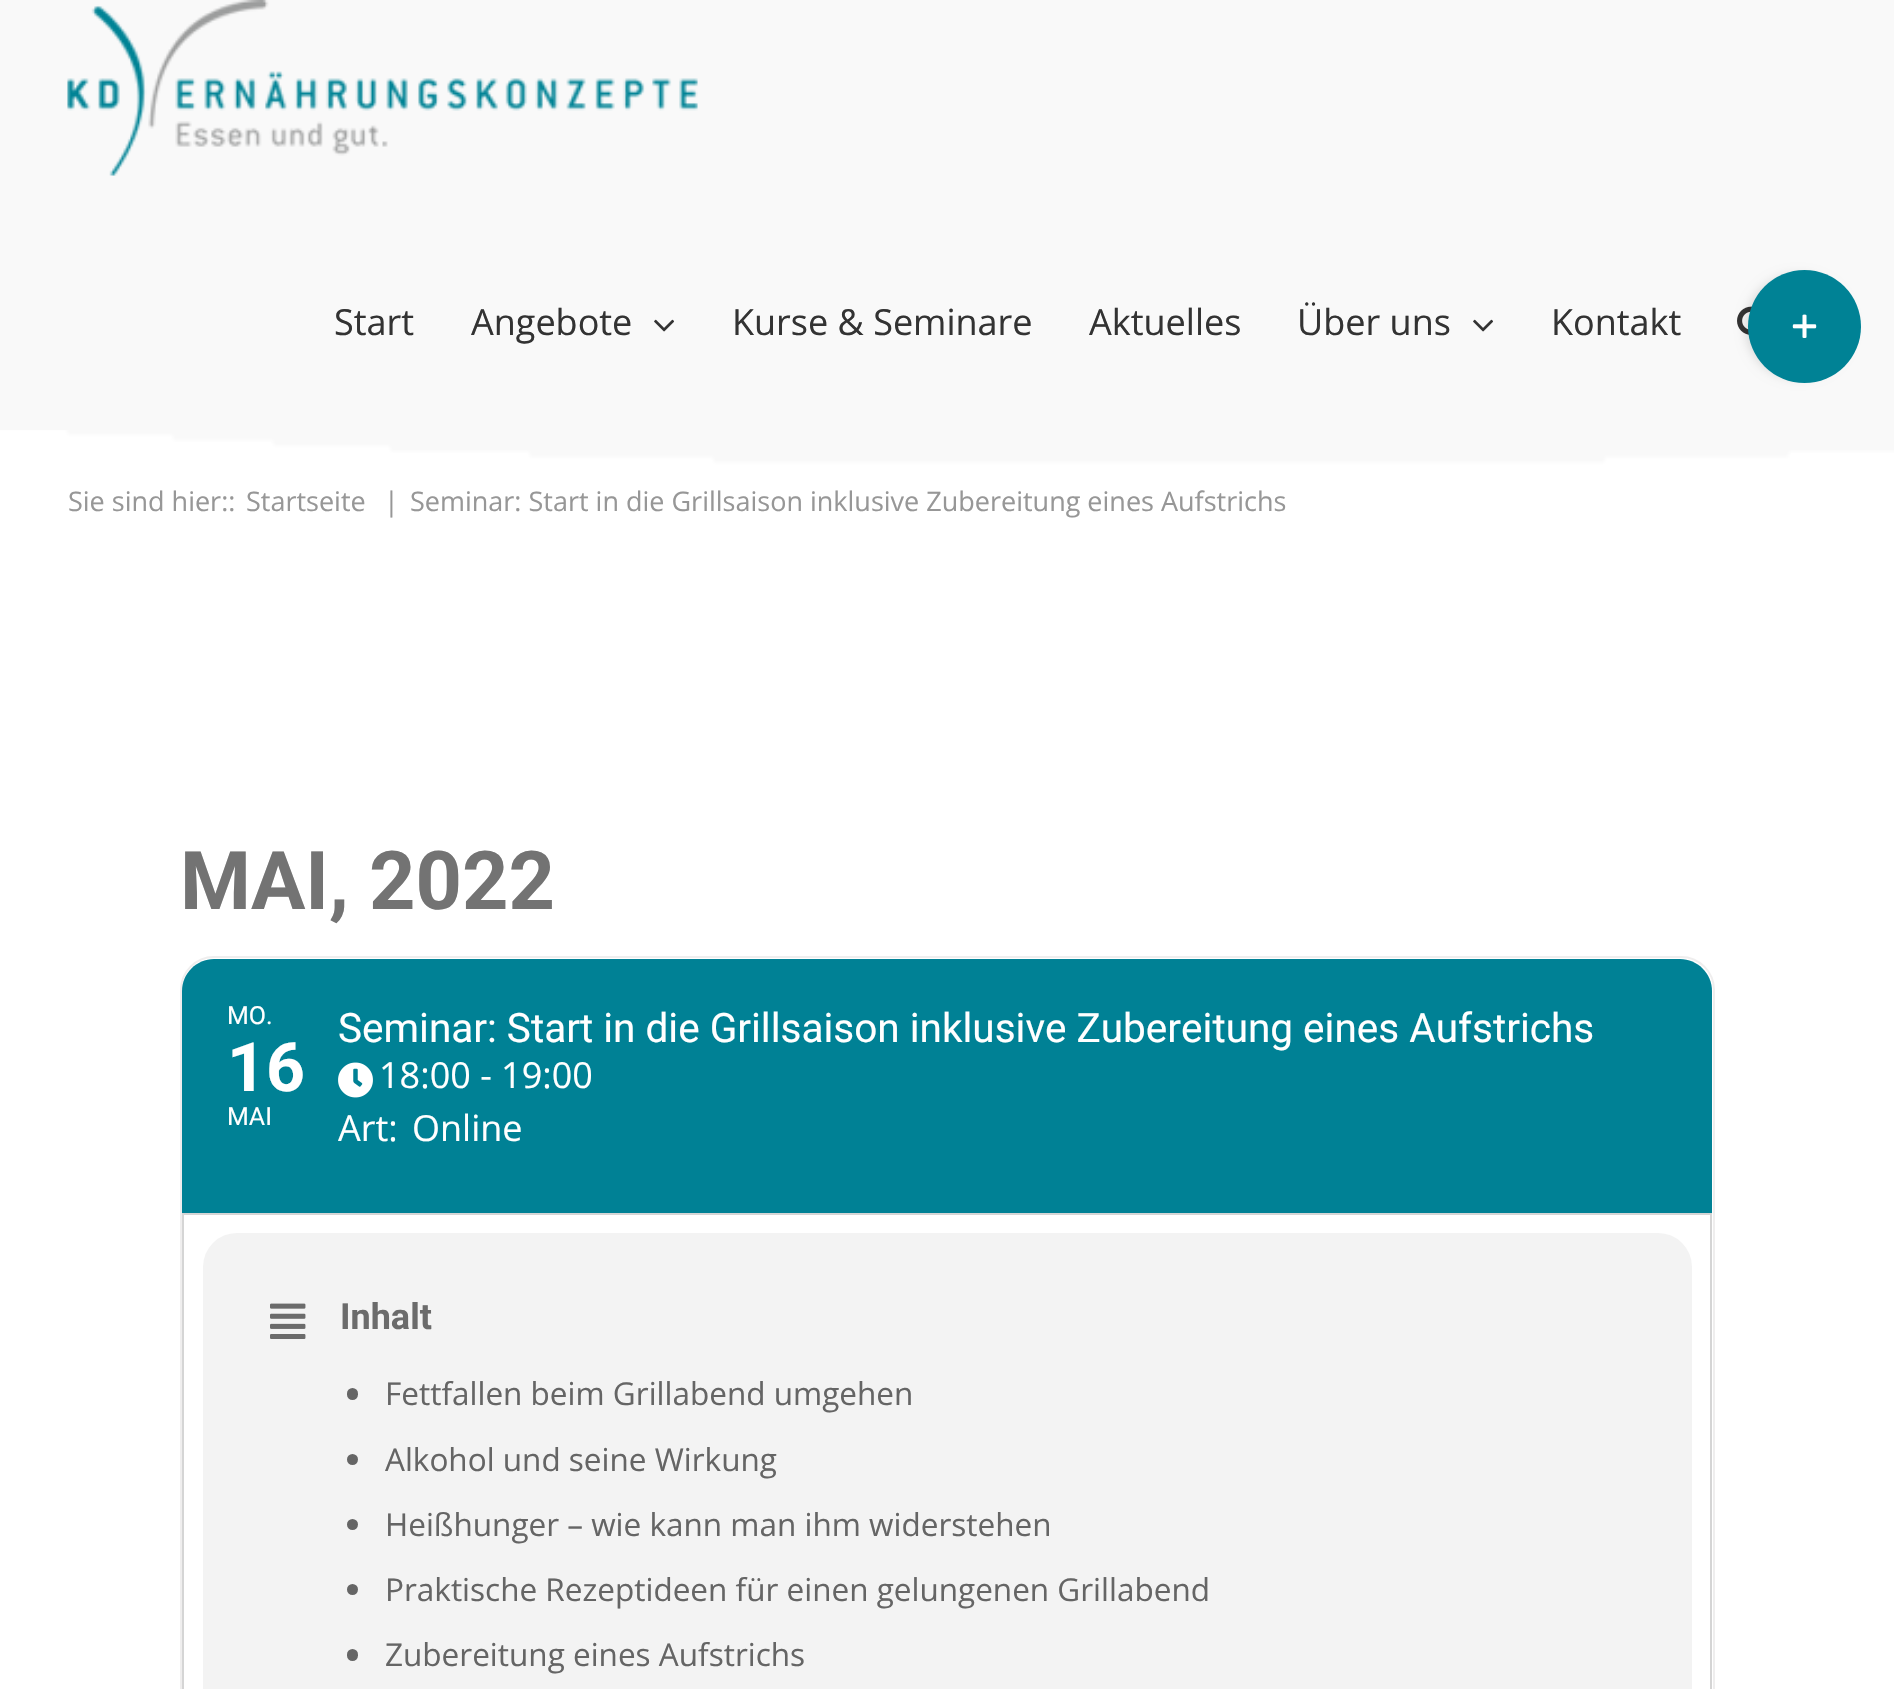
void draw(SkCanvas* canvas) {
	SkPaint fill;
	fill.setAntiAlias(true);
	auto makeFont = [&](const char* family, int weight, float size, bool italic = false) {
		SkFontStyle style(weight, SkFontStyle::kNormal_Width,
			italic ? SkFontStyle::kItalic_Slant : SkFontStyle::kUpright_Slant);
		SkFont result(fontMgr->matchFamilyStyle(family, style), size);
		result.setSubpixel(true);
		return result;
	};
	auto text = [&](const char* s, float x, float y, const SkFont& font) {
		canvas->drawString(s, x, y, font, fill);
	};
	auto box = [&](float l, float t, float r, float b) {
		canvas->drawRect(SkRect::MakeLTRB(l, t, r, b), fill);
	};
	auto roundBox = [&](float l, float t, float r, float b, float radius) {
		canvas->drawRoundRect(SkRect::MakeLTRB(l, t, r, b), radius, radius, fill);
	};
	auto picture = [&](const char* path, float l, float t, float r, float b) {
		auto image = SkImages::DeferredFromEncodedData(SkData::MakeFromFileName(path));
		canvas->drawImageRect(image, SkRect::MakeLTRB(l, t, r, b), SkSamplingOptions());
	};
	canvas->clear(0xFFFFFFFF);
	fill.setColor(0xFFF9F9F9);
	box(0, 0, 1894, 465);
	picture("image0.png", 0, 430, 1894, 468);
	picture("image1.png", 67, 0, 698, 176);
	picture("image2.png", 654, 319, 674, 332);
	picture("image2.png", 1473, 319, 1493, 332);
	picture("image3.png", 1737, 306, 1752, 335);
	fill.setColor(0x24000000);
	fill.setMaskFilter(SkMaskFilter::MakeBlur(kNormal_SkBlurStyle, 5.5f));
	canvas->drawRoundRect(SkRect::MakeLTRB(1746, 275, 1850, 378), 51.5f, 51.5f, fill);
	fill.setMaskFilter(nullptr);
	fill.setColor(0xFF008295);
	canvas->drawCircle(1804.5f, 326.5f, 56.5f, fill);
	picture("image4.png", 1792, 314, 1817, 338);
	fill.setStyle(SkPaint::kStroke_Style);
	fill.setStrokeWidth(2);
	fill.setColor(0xFFEFEEEE);
	canvas->drawRoundRect(SkRect::MakeLTRB(181, 957, 1714, 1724), 33, 33, fill);
	fill.setStyle(SkPaint::kFill_Style);
	fill.setColor(0xFFD5D5D5);
	box(182, 1213, 1712, 1215);
	fill.setColor(0xFF008195);
	canvas->drawPath(SkPathBuilder().moveTo(214, 959).lineTo(1680, 959).cubicTo(1697.5f, 959, 1712, 973.5f, 1712, 991).lineTo(1712, 1213).lineTo(182, 1213).lineTo(182, 991).cubicTo(182, 973.5f, 196.5f, 959, 214, 959).close().detach(), fill);
	picture("image5.png", 338, 1062, 373, 1098);
	fill.setColor(0xFFD5D5D5);
	canvas->drawPath(SkPathBuilder(SkPathFillType::kEvenOdd).moveTo(182, 1215).lineTo(1712, 1215).lineTo(1712, 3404).cubicTo(1712, 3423, 1697, 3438, 1678, 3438).lineTo(216, 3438).cubicTo(197, 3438, 182, 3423, 182, 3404).close().moveTo(184, 1215).lineTo(1710, 1215).lineTo(1710, 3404).cubicTo(1710, 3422, 1696, 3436, 1678, 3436).lineTo(216, 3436).cubicTo(199, 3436, 184, 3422, 184, 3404).close().detach(), fill);
	fill.setColor(0xFFF3F3F3);
	roundBox(203, 1233, 1692, 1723, 34);
	picture("image6.png", 270, 1303, 306, 1339);
	fill.setColor(0xFF656565);
	roundBox(347, 1388, 358, 1400, 5.5f);
	canvas->drawCircle(352.5f, 1459.5f, 5.5f, fill);
	canvas->drawCircle(352.5f, 1524.5f, 5.5f, fill);
	canvas->drawCircle(352.5f, 1589.5f, 5.5f, fill);
	roundBox(347, 1649, 358, 1661, 5.5f);
	auto font1 = makeFont("Open Sans", 400, 36);
	fill.setColor(0xFF333333);
	text("Start", 334, 335, font1);
	text("Angebote", 471, 335, font1);
	text("Kurse & Seminare", 732, 335, font1);
	text("Aktuelles", 1089, 335, font1);
	text("Über uns", 1297, 335, font1);
	text("Kontakt", 1551, 335, font1);
	auto font2 = makeFont("Open Sans", 400, 27);
	fill.setColor(0xFF979797);
	text("Sie sind hier::", 68, 511, font2);
	text("Startseite", 246, 511, font2);
	text("|", 384, 511, font2);
	text("Seminar: Start in die Grillsaison inklusive Zubereitung eines Aufstrichs", 410, 511, font2);
	auto font3 = makeFont("Roboto", 700, 81);
	fill.setColor(0xFF737373);
	text("MAI, 2022", 180, 909, font3);
	auto font4 = makeFont("Roboto", 400, 25);
	fill.setColor(0xFFFFFFFF);
	text("MO.", 227, 1024, font4);
	auto font5 = makeFont("Roboto", 700, 68);
	text("16", 227, 1091, font5);
	text("MAI", 227, 1125, font4);
	auto font6 = makeFont("Roboto", 400, 40.5f);
	text("Seminar: Start in die Grillsaison inklusive Zubereitung eines Aufstrichs", 338, 1042, font6);
	text("18:00 - 19:00", 379, 1088, font1);
	text("Art:", 338, 1141, font1);
	text("Online", 412, 1141, font1);
	auto font7 = makeFont("Roboto", 700, 36);
	fill.setColor(0xFF6B6B6B);
	text("Inhalt", 340, 1329, font7);
	auto font8 = makeFont("Open Sans", 400, 31.5f);
	fill.setColor(0xFF656565);
	text("Fettfallen beim Grillabend umgehen", 385, 1405, font8);
	text("Alkohol und seine Wirkung", 385, 1471, font8);
	text("Heißhunger – wie kann man ihm widerstehen", 385, 1536, font8);
	text("Praktische Rezeptideen für einen gelungenen Grillabend", 385, 1601, font8);
	text("Zubereitung eines Aufstrichs", 385, 1666, font8);
}
